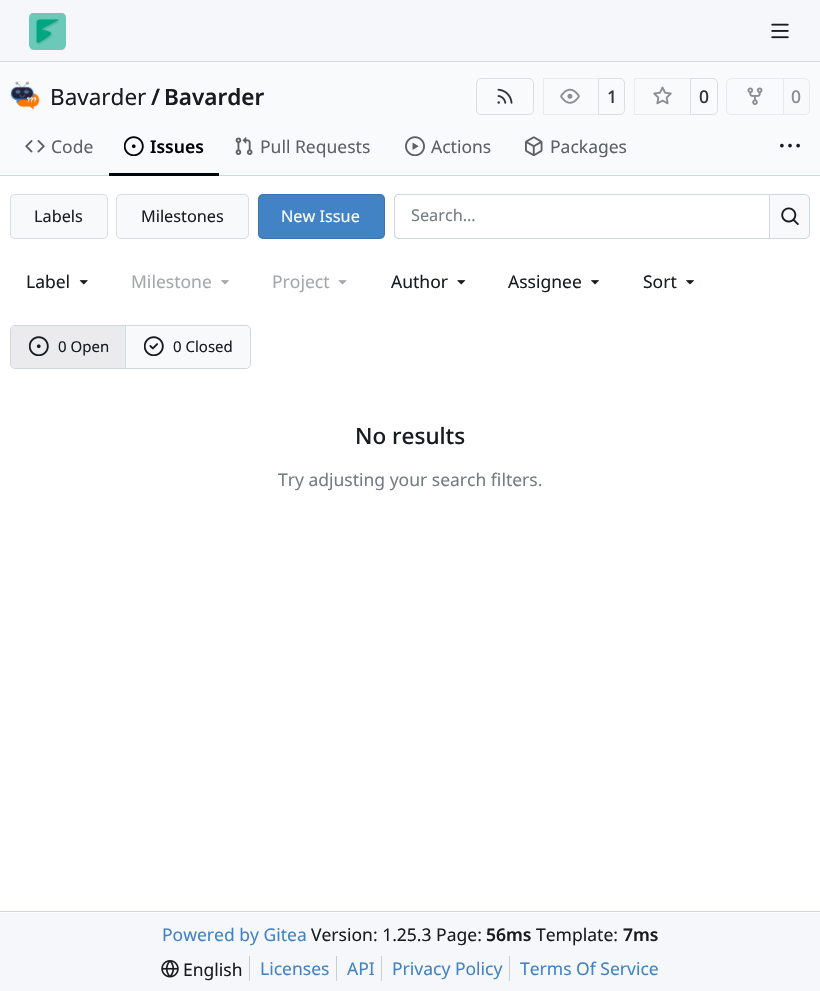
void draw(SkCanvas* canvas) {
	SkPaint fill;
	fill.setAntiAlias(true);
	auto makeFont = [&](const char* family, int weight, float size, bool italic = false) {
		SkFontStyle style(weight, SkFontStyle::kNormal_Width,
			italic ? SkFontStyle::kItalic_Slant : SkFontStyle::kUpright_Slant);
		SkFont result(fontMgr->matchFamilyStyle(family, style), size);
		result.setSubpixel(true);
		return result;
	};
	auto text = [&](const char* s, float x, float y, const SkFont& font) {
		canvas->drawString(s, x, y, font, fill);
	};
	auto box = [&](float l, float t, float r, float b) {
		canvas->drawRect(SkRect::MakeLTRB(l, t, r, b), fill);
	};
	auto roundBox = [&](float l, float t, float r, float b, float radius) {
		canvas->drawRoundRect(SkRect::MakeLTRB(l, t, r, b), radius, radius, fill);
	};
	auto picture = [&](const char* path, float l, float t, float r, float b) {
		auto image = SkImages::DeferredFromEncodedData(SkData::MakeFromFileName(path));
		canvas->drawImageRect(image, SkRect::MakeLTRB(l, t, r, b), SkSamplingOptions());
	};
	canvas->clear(0xFFFFFFFF);
	fill.setColor(0xFFF6F7FA);
	box(0, 0, 820, 61);
	fill.setColor(0xFFD0D7DE);
	box(0, 61, 820, 62);
	picture("image0.png", 29, 13, 66, 50);
	picture("image1.png", 771, 23, 789, 39);
	fill.setColor(0xFFF9FAFB);
	box(0, 63, 820, 175);
	picture("image2.png", 10, 81, 40, 110);
	fill.setStyle(SkPaint::kStroke_Style);
	fill.setStrokeWidth(1);
	fill.setColor(0xFFDDDEE1);
	canvas->drawRoundRect(SkRect::MakeLTRB(476.5f, 78.5f, 533.5f, 114.5f), 4.5f, 4.5f, fill);
	picture("image3.png", 497, 88, 513, 104);
	canvas->drawPath(SkPathBuilder().moveTo(598.5f, 78.5f).lineTo(620, 78.5f).cubicTo(622.5f, 78.5f, 624.5f, 80.5f, 624.5f, 83).lineTo(624.5f, 110).cubicTo(624.5f, 112.5f, 622.5f, 114.5f, 620, 114.5f).lineTo(598.5f, 114.5f).close().detach(), fill);
	fill.setStyle(SkPaint::kFill_Style);
	fill.setColor(0x8CF8F9FB);
	canvas->drawPath(SkPathBuilder().moveTo(548, 78).lineTo(599, 78).lineTo(599, 115).lineTo(548, 115).cubicTo(545, 115, 543, 113, 543, 110).lineTo(543, 83).cubicTo(543, 80, 545, 78, 548, 78).close().detach(), fill);
	fill.setStyle(SkPaint::kStroke_Style);
	fill.setColor(0x0F000017);
	canvas->drawRect(SkRect::MakeLTRB(543.5f, 78.5f, 598.5f, 114.5f), fill);
	picture("image4.png", 560, 88, 580, 104);
	fill.setColor(0xFFDDDEE1);
	canvas->drawPath(SkPathBuilder().moveTo(690.5f, 78.5f).lineTo(713, 78.5f).cubicTo(715.5f, 78.5f, 717.5f, 80.5f, 717.5f, 83).lineTo(717.5f, 110).cubicTo(717.5f, 112.5f, 715.5f, 114.5f, 713, 114.5f).lineTo(690.5f, 114.5f).close().detach(), fill);
	fill.setStyle(SkPaint::kFill_Style);
	fill.setColor(0x8CF8F9FB);
	canvas->drawPath(SkPathBuilder().moveTo(639, 78).lineTo(691, 78).lineTo(691, 115).lineTo(639, 115).cubicTo(636, 115, 634, 113, 634, 110).lineTo(634, 83).cubicTo(634, 80, 636, 78, 639, 78).close().detach(), fill);
	fill.setStyle(SkPaint::kStroke_Style);
	fill.setColor(0x0F000017);
	canvas->drawRect(SkRect::MakeLTRB(634.5f, 78.5f, 690.5f, 114.5f), fill);
	picture("image5.png", 653, 86, 672, 105);
	fill.setColor(0xFFE9EAED);
	canvas->drawPath(SkPathBuilder().moveTo(731, 78.5f).lineTo(783.5f, 78.5f).lineTo(783.5f, 114.5f).lineTo(731, 114.5f).cubicTo(728.5f, 114.5f, 726.5f, 112.5f, 726.5f, 110).lineTo(726.5f, 83).cubicTo(726.5f, 80.5f, 728.5f, 78.5f, 731, 78.5f).close().detach(), fill);
	picture("image6.png", 747, 87, 763, 105);
	fill.setStyle(SkPaint::kFill_Style);
	fill.setColor(0xFFF8F9FB);
	canvas->drawPath(SkPathBuilder().moveTo(783.5f, 78.5f).lineTo(805, 78.5f).cubicTo(807.5f, 78.5f, 809.5f, 80.5f, 809.5f, 83).lineTo(809.5f, 110).cubicTo(809.5f, 112.5f, 807.5f, 114.5f, 805, 114.5f).lineTo(783.5f, 114.5f).close().detach(), fill);
	fill.setStyle(SkPaint::kStroke_Style);
	fill.setColor(0xFFE9EAED);
	canvas->drawPath(SkPathBuilder().moveTo(783.5f, 78.5f).lineTo(805, 78.5f).cubicTo(807.5f, 78.5f, 809.5f, 80.5f, 809.5f, 83).lineTo(809.5f, 110).cubicTo(809.5f, 112.5f, 807.5f, 114.5f, 805, 114.5f).lineTo(783.5f, 114.5f).close().detach(), fill);
	picture("image7.png", 25, 140, 45, 153);
	fill.setStyle(SkPaint::kFill_Style);
	fill.setColor(0xFFD0D7DE);
	box(0, 175, 820, 176);
	fill.setColor(0xFF01050A);
	box(109, 173, 219, 176);
	picture("image8.png", 124, 136, 144, 156);
	picture("image9.png", 235, 137, 253, 155);
	picture("image10.png", 405, 136, 425, 156);
	picture("image11.png", 525, 136, 543, 156);
	picture("image12.png", 780, 143, 800, 148);
	fill.setColor(0xFFF8F9FB);
	roundBox(10, 194, 108, 239, 5);
	fill.setStyle(SkPaint::kStroke_Style);
	fill.setColor(0x1C000017);
	canvas->drawRoundRect(SkRect::MakeLTRB(10.5f, 194.5f, 107.5f, 238.5f), 4.5f, 4.5f, fill);
	fill.setStyle(SkPaint::kFill_Style);
	fill.setColor(0xFFF8F9FB);
	roundBox(116, 194, 249, 239, 5);
	fill.setStyle(SkPaint::kStroke_Style);
	fill.setColor(0x1C000017);
	canvas->drawRoundRect(SkRect::MakeLTRB(116.5f, 194.5f, 248.5f, 238.5f), 4.5f, 4.5f, fill);
	fill.setStyle(SkPaint::kFill_Style);
	fill.setColor(0xFF4183C4);
	roundBox(258, 194, 385, 239, 5);
	fill.setStyle(SkPaint::kStroke_Style);
	fill.setColor(0x1C000017);
	canvas->drawRoundRect(SkRect::MakeLTRB(258.5f, 194.5f, 384.5f, 238.5f), 4.5f, 4.5f, fill);
	fill.setStyle(SkPaint::kFill_Style);
	fill.setColor(0xFFD0D7DE);
	canvas->drawPath(SkPathBuilder(SkPathFillType::kEvenOdd).moveTo(399, 194).lineTo(769, 194).lineTo(769, 239).lineTo(399, 239).cubicTo(396, 239, 394, 237, 394, 234).lineTo(394, 199).cubicTo(394, 196, 396, 194, 399, 194).close().moveTo(399, 195).lineTo(769, 195).lineTo(769, 238).lineTo(399, 238).cubicTo(397, 238, 395, 236, 395, 234).lineTo(395, 199).cubicTo(395, 197, 397, 195, 399, 195).close().detach(), fill);
	fill.setColor(0xFFF8F9FB);
	canvas->drawPath(SkPathBuilder().moveTo(769.5f, 194.5f).lineTo(805, 194.5f).cubicTo(807.5f, 194.5f, 809.5f, 196.5f, 809.5f, 199).lineTo(809.5f, 234).cubicTo(809.5f, 236.5f, 807.5f, 238.5f, 805, 238.5f).lineTo(769.5f, 238.5f).close().detach(), fill);
	fill.setStyle(SkPaint::kStroke_Style);
	fill.setColor(0xFFD0D7DE);
	canvas->drawPath(SkPathBuilder().moveTo(769.5f, 194.5f).lineTo(805, 194.5f).cubicTo(807.5f, 194.5f, 809.5f, 196.5f, 809.5f, 199).lineTo(809.5f, 234).cubicTo(809.5f, 236.5f, 807.5f, 238.5f, 805, 238.5f).lineTo(769.5f, 238.5f).close().detach(), fill);
	picture("image13.png", 781, 207, 799, 225);
	picture("image14.png", 79, 280, 88, 285);
	picture("image15.png", 221, 280, 229, 285);
	picture("image16.png", 338, 280, 347, 285);
	picture("image17.png", 457, 280, 466, 285);
	picture("image18.png", 591, 280, 599, 285);
	picture("image18.png", 686, 280, 694, 285);
	canvas->drawRoundRect(SkRect::MakeLTRB(10.5f, 325.5f, 250.5f, 368.5f), 4.5f, 4.5f, fill);
	fill.setStyle(SkPaint::kFill_Style);
	fill.setColor(0x14000017);
	canvas->drawPath(SkPathBuilder().moveTo(16, 326).lineTo(126, 326).lineTo(126, 368).lineTo(16, 368).cubicTo(13, 368, 11, 366, 11, 363).lineTo(11, 331).cubicTo(11, 328, 13, 326, 16, 326).close().detach(), fill);
	picture("image19.png", 29, 336, 49, 356);
	fill.setColor(0xFFD0D7DE);
	box(125, 326, 126, 368);
	fill.setColor(0xFFF8F9FB);
	canvas->drawPath(SkPathBuilder().moveTo(126, 326).lineTo(245, 326).cubicTo(248, 326, 250, 328, 250, 331).lineTo(250, 363).cubicTo(250, 366, 248, 368, 245, 368).lineTo(126, 368).close().detach(), fill);
	picture("image20.png", 144, 336, 164, 356);
	fill.setColor(0xFFF6F7FA);
	box(0, 913, 820, 991);
	fill.setColor(0xFFD0D7DE);
	box(0, 911, 820, 912);
	picture("image21.png", 161, 960, 179, 978);
	fill.setColor(0xFFC7CED5);
	box(249, 956, 250, 981);
	box(336, 956, 337, 981);
	box(381, 956, 382, 981);
	box(509, 956, 510, 981);
	auto font1 = makeFont("Noto Sans", 400, 22.5f);
	fill.setColor(0xFF181C21);
	text("Bavarder", 50, 105, font1);
	auto font2 = makeFont("Noto Sans", 600, 22.5f);
	text("/", 151, 105, font2);
	text("Bavarder", 164, 105, font2);
	auto font3 = makeFont("Noto Sans", 500, 17.5f);
	fill.setColor(0xFF30363B);
	text("1", 607, 103, font3);
	text("0", 699, 103, font3);
	fill.setColor(0xFF8A8E91);
	text("0", 791, 103, font3);
	auto font4 = makeFont("Noto Sans", 400, 17.5f);
	fill.setColor(0xFF5B6167);
	text("Code", 51, 153, font4);
	auto font5 = makeFont("Noto Sans", 600, 17.5f);
	fill.setColor(0xFF01050A);
	text("Issues", 150, 153, font5);
	fill.setColor(0xFF5B6167);
	text("Pull Requests", 260, 153, font4);
	text("Actions", 431, 153, font4);
	text("Packages", 550, 153, font4);
	auto font6 = makeFont("Noto Sans", 400, 16.25f);
	fill.setColor(0xFF181C21);
	text("Labels", 34, 222, font6);
	text("Milestones", 141, 222, font6);
	fill.setColor(0xFFFFFFFF);
	text("New Issue", 281, 222, font6);
	fill.setColor(0xFF747C84);
	text("Search…", 411, 221, font6);
	fill.setColor(0xFF181C21);
	text("Label", 26, 288, font4);
	fill.setColor(0xFFA5A8AB);
	text("Milestone", 131, 288, font4);
	text("Project", 272, 288, font4);
	fill.setColor(0xFF181C21);
	text("Author", 391, 288, font4);
	text("Assignee", 508, 288, font4);
	text("Sort", 643, 288, font4);
	auto font7 = makeFont("Noto Sans", 400, 15);
	text("0 Open", 58, 352, font7);
	text("0 Closed", 173, 352, font7);
	auto font8 = makeFont("Noto Sans", 500, 22.5f);
	text("No results", 355, 444, font8);
	fill.setColor(0xFF747C84);
	text("Try adjusting your search filters.", 278, 486, font4);
	fill.setColor(0xFF4183C4);
	text("Powered by Gitea", 162, 941, font4);
	fill.setColor(0xFF181C21);
	text("Version: 1.25.3 Page:", 311, 941, font4);
	text("56ms", 486, 941, font5);
	text("Template:", 536, 941, font4);
	text("7ms", 623, 941, font5);
	text("English", 183, 976, font4);
	fill.setColor(0xFF4183C4);
	text("Licenses", 260, 975, font4);
	text("API", 347, 975, font4);
	text("Privacy Policy", 392, 975, font4);
	text("Terms Of Service", 520, 975, font4);
}
